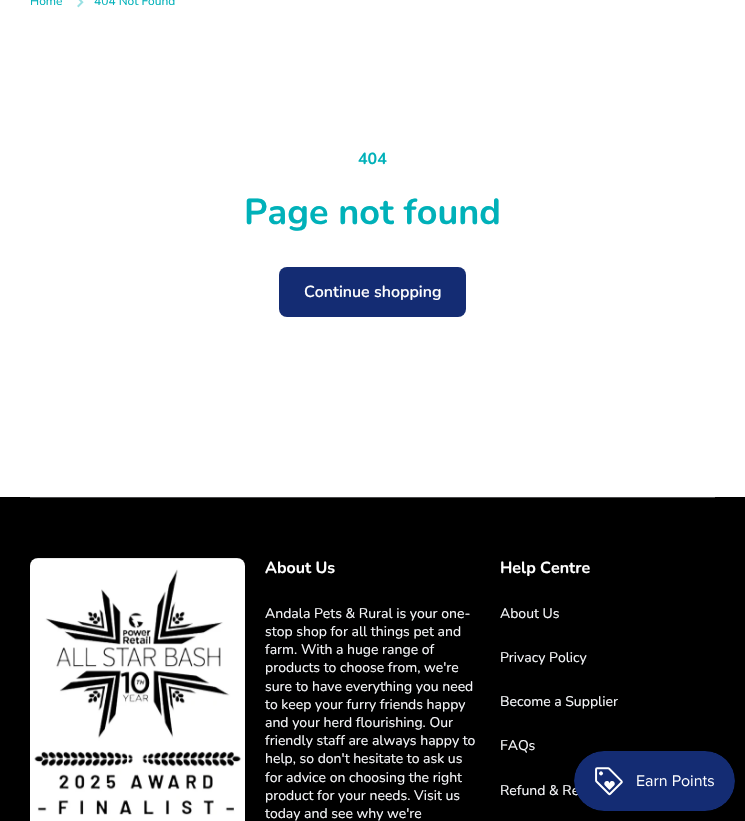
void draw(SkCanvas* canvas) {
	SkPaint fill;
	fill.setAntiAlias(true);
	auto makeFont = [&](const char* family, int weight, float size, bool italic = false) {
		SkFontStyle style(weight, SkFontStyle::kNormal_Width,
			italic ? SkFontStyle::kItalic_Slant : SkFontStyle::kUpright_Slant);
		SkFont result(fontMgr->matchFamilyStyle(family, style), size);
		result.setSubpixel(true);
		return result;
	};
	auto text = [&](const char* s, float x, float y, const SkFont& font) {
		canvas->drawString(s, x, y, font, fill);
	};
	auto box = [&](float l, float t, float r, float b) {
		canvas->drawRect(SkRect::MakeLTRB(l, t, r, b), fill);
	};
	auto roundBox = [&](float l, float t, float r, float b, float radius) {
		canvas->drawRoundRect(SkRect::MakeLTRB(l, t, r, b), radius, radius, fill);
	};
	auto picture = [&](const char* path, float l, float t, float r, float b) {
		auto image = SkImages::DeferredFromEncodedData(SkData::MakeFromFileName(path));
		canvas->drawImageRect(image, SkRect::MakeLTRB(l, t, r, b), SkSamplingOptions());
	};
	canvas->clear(0xFFFFFFFF);
	picture("image0.png", 77, 0, 84, 8);
	fill.setColor(0xFF142C73);
	roundBox(279, 267, 466, 317, 8);
	fill.setColor(0xFF000000);
	box(0, 497, 745, 821);
	fill.setColor(0xFF4A4A4B);
	box(30, 497, 715, 498);
	picture("image1.png", 30, 558, 245, 821);
	auto font1 = makeFont("Nunito", 400, 12);
	fill.setColor(0xFF00B1B9);
	text("Home", 30, 5, font1);
	text("404 Not Found", 94, 5, font1);
	auto font2 = makeFont("Nunito", 700, 16);
	text("404", 358, 164, font2);
	auto font3 = makeFont("Nunito", 700, 36);
	text("Page not found", 244, 224, font3);
	auto font4 = makeFont("Nunito", 600, 16);
	fill.setColor(0xFFFFFFFF);
	text("Continue shopping", 304, 297, font4);
	text("About Us", 265, 573, font2);
	auto font5 = makeFont("Nunito", 400, 14);
	fill.setColor(0xFFF6F7FA);
	text("Andala Pets & Rural is your one-", 265, 618, font5);
	text("stop shop for all things pet and", 265, 636, font5);
	text("farm. With a huge range of", 265, 654, font5);
	text("products to choose from, we're", 265, 672, font5);
	text("sure to have everything you need", 265, 691, font5);
	text("to keep your furry friends happy", 265, 709, font5);
	text("and your herd flourishing. Our", 265, 727, font5);
	text("friendly staff are always happy to", 265, 745, font5);
	text("help, so don't hesitate to ask us", 265, 763, font5);
	text("for advice on choosing the right", 265, 782, font5);
	text("product for your needs. Visit us", 265, 800, font5);
	text("today and see why we're", 265, 818, font5);
	fill.setColor(0xFFFFFFFF);
	text("Help Centre", 500, 573, font2);
	fill.setColor(0xFFF6F7FA);
	text("About Us", 500, 618, font5);
	text("Privacy Policy", 500, 662, font5);
	text("Become a Supplier", 500, 706, font5);
	text("FAQs", 500, 750, font5);
	text("Refund & Re", 500, 795, font5);
	picture("image2.png", 574, 751, 735, 811);
}
